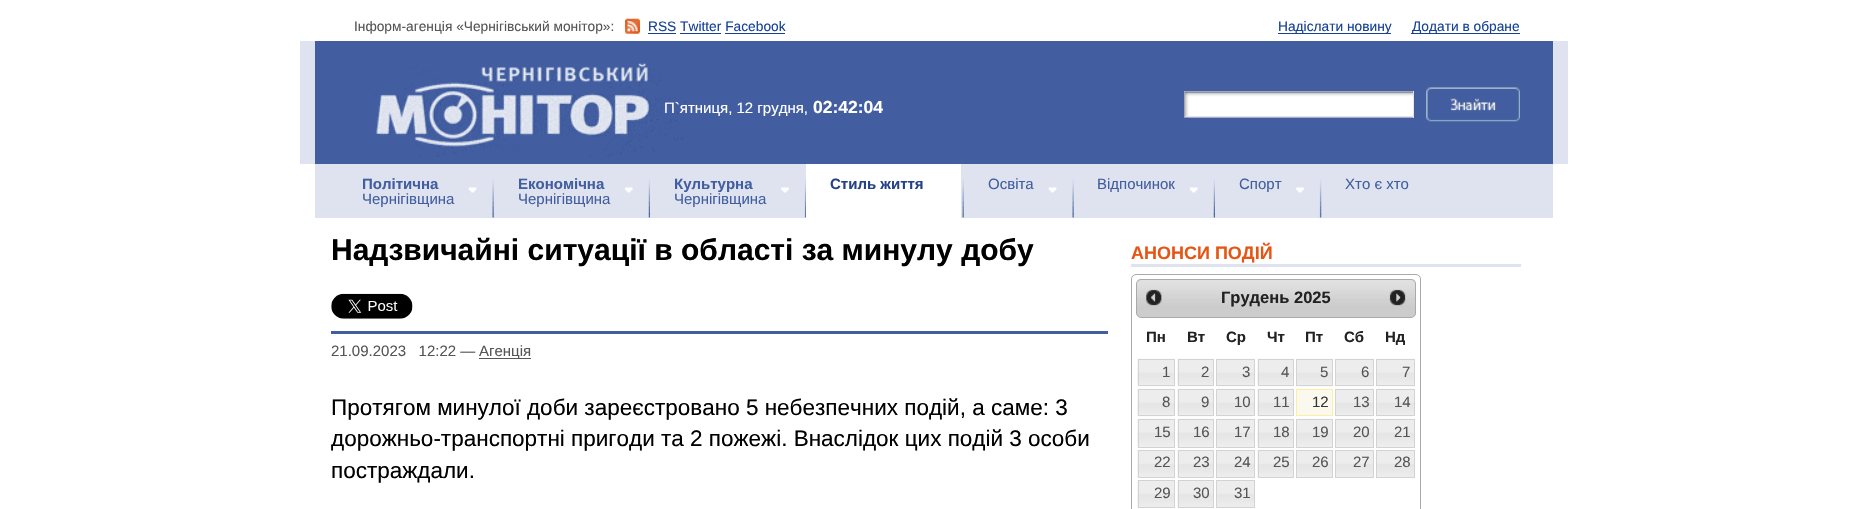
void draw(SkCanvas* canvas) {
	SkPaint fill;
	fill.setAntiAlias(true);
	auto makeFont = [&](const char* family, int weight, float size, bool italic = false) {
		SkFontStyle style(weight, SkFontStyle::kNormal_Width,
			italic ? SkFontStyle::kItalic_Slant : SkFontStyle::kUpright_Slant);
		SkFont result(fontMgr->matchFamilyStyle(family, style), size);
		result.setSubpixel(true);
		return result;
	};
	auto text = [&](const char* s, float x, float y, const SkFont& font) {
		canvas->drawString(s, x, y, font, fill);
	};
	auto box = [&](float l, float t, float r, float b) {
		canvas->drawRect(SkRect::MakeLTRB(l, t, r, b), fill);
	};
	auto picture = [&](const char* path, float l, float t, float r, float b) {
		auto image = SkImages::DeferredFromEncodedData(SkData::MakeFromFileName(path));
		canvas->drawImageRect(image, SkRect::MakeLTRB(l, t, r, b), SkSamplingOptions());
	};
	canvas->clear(0xFFFFFFFF);
	picture("image0.png", 625, 18, 640, 34);
	fill.setColor(0xFF154198);
	box(648, 33, 676, 34);
	box(680, 33, 721, 34);
	box(725, 33, 785, 34);
	box(1278, 33, 1391, 34);
	box(1411, 33, 1520, 34);
	fill.setColor(0xFF425EA0);
	box(315, 41, 1553, 164);
	fill.setColor(0xFFDEE3EF);
	box(1553, 41, 1568, 164);
	box(300, 41, 315, 164);
	picture("image1.png", 350, 51, 691, 157);
	picture("image2.png", 1185, 92, 1413, 118);
	fill.setColor(0xFFA6A6A6);
	box(1184, 91, 1414, 92);
	fill.setColor(0xFFE4E4E4);
	box(1413, 91, 1414, 118);
	box(1184, 116, 1414, 117);
	fill.setColor(0xFFA6A6A6);
	box(1184, 91, 1185, 118);
	picture("image3.png", 1426, 87, 1520, 122);
	fill.setColor(0xFFDEE3EF);
	box(315, 164, 1553, 218);
	picture("image4.png", 468, 179, 494, 218);
	picture("image5.png", 625, 179, 650, 218);
	picture("image6.png", 781, 179, 806, 218);
	picture("image7.png", 962, 179, 964, 218);
	fill.setColor(0xFFFFFFFF);
	box(806, 164, 961, 218);
	picture("image4.png", 1048, 179, 1074, 218);
	picture("image5.png", 1190, 179, 1215, 218);
	picture("image8.png", 1296, 179, 1322, 218);
	picture("image9.png", 331, 293, 413, 319);
	fill.setColor(0xFF425EA0);
	box(331, 331, 1108, 334);
	fill.setColor(0xFF555555);
	box(479, 358, 531, 359);
	picture("image10.png", 1093, 506, 1094, 508);
	fill.setColor(0xFFDEE3EF);
	box(1131, 264, 1521, 267);
	fill.setStyle(SkPaint::kStroke_Style);
	fill.setStrokeWidth(1);
	fill.setColor(0xFFAAAAAA);
	canvas->drawRoundRect(SkRect::MakeLTRB(1131.5f, 274.5f, 1420.5f, 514.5f), 4.5f, 4.5f, fill);
	picture("image11.png", 1136, 279, 1416, 317);
	canvas->drawRoundRect(SkRect::MakeLTRB(1136.5f, 279.5f, 1415.5f, 317.5f), 4.5f, 4.5f, fill);
	picture("image12.png", 1146, 289, 1162, 306);
	picture("image13.png", 1389, 289, 1406, 306);
	picture("image14.png", 1137, 358, 1175, 387);
	fill.setColor(0xFFD3D3D3);
	canvas->drawRect(SkRect::MakeLTRB(1138.5f, 359.5f, 1174.5f, 385.5f), fill);
	picture("image15.png", 1177, 358, 1214, 387);
	canvas->drawRect(SkRect::MakeLTRB(1178.5f, 359.5f, 1213.5f, 385.5f), fill);
	picture("image16.png", 1216, 358, 1255, 387);
	canvas->drawRect(SkRect::MakeLTRB(1216.5f, 359.5f, 1254.5f, 385.5f), fill);
	picture("image15.png", 1257, 358, 1294, 387);
	canvas->drawRect(SkRect::MakeLTRB(1258.5f, 359.5f, 1293.5f, 385.5f), fill);
	picture("image17.png", 1296, 358, 1332, 387);
	canvas->drawRect(SkRect::MakeLTRB(1296.5f, 359.5f, 1332.5f, 385.5f), fill);
	picture("image18.png", 1335, 358, 1374, 387);
	canvas->drawRect(SkRect::MakeLTRB(1335.5f, 359.5f, 1373.5f, 385.5f), fill);
	picture("image16.png", 1376, 358, 1415, 387);
	canvas->drawRect(SkRect::MakeLTRB(1376.5f, 359.5f, 1414.5f, 385.5f), fill);
	picture("image14.png", 1137, 388, 1175, 417);
	canvas->drawRect(SkRect::MakeLTRB(1138.5f, 389.5f, 1174.5f, 415.5f), fill);
	picture("image15.png", 1177, 388, 1214, 417);
	canvas->drawRect(SkRect::MakeLTRB(1178.5f, 389.5f, 1213.5f, 415.5f), fill);
	picture("image16.png", 1216, 388, 1255, 417);
	canvas->drawRect(SkRect::MakeLTRB(1216.5f, 389.5f, 1254.5f, 415.5f), fill);
	picture("image15.png", 1257, 388, 1294, 417);
	canvas->drawRect(SkRect::MakeLTRB(1258.5f, 389.5f, 1293.5f, 415.5f), fill);
	fill.setStyle(SkPaint::kFill_Style);
	fill.setColor(0xFFFBF9EE);
	canvas->drawRect(SkRect::MakeLTRB(1296.5f, 389.5f, 1332.5f, 415.5f), fill);
	fill.setStyle(SkPaint::kStroke_Style);
	fill.setColor(0xFFFCEFA1);
	canvas->drawRect(SkRect::MakeLTRB(1296.5f, 389.5f, 1332.5f, 415.5f), fill);
	picture("image18.png", 1335, 388, 1374, 417);
	fill.setColor(0xFFD3D3D3);
	canvas->drawRect(SkRect::MakeLTRB(1335.5f, 389.5f, 1373.5f, 415.5f), fill);
	picture("image16.png", 1376, 388, 1415, 417);
	canvas->drawRect(SkRect::MakeLTRB(1376.5f, 389.5f, 1414.5f, 415.5f), fill);
	picture("image19.png", 1137, 418, 1175, 448);
	canvas->drawRect(SkRect::MakeLTRB(1138.5f, 419.5f, 1174.5f, 447.5f), fill);
	picture("image20.png", 1177, 418, 1214, 448);
	canvas->drawRect(SkRect::MakeLTRB(1178.5f, 419.5f, 1213.5f, 447.5f), fill);
	picture("image21.png", 1216, 418, 1255, 447);
	canvas->drawRect(SkRect::MakeLTRB(1216.5f, 419.5f, 1254.5f, 447.5f), fill);
	picture("image20.png", 1257, 418, 1294, 448);
	canvas->drawRect(SkRect::MakeLTRB(1258.5f, 419.5f, 1293.5f, 447.5f), fill);
	picture("image22.png", 1296, 418, 1332, 447);
	canvas->drawRect(SkRect::MakeLTRB(1296.5f, 419.5f, 1332.5f, 447.5f), fill);
	picture("image23.png", 1335, 418, 1374, 447);
	canvas->drawRect(SkRect::MakeLTRB(1335.5f, 419.5f, 1373.5f, 447.5f), fill);
	picture("image21.png", 1376, 418, 1415, 447);
	canvas->drawRect(SkRect::MakeLTRB(1376.5f, 419.5f, 1414.5f, 447.5f), fill);
	picture("image24.png", 1137, 450, 1174, 478);
	canvas->drawRect(SkRect::MakeLTRB(1138.5f, 450.5f, 1174.5f, 477.5f), fill);
	picture("image25.png", 1177, 450, 1213, 478);
	canvas->drawRect(SkRect::MakeLTRB(1178.5f, 450.5f, 1213.5f, 477.5f), fill);
	picture("image26.png", 1217, 451, 1254, 477);
	canvas->drawRect(SkRect::MakeLTRB(1216.5f, 450.5f, 1254.5f, 477.5f), fill);
	picture("image25.png", 1257, 450, 1293, 478);
	canvas->drawRect(SkRect::MakeLTRB(1258.5f, 450.5f, 1293.5f, 477.5f), fill);
	picture("image27.png", 1297, 451, 1332, 477);
	canvas->drawRect(SkRect::MakeLTRB(1296.5f, 450.5f, 1332.5f, 477.5f), fill);
	picture("image26.png", 1336, 451, 1373, 477);
	canvas->drawRect(SkRect::MakeLTRB(1335.5f, 450.5f, 1373.5f, 477.5f), fill);
	picture("image26.png", 1377, 451, 1414, 477);
	canvas->drawRect(SkRect::MakeLTRB(1376.5f, 450.5f, 1414.5f, 477.5f), fill);
	picture("image24.png", 1137, 480, 1174, 508);
	canvas->drawRect(SkRect::MakeLTRB(1138.5f, 480.5f, 1174.5f, 507.5f), fill);
	picture("image25.png", 1177, 480, 1213, 508);
	canvas->drawRect(SkRect::MakeLTRB(1178.5f, 480.5f, 1213.5f, 507.5f), fill);
	picture("image26.png", 1217, 481, 1254, 507);
	canvas->drawRect(SkRect::MakeLTRB(1216.5f, 480.5f, 1254.5f, 507.5f), fill);
	auto font1 = makeFont("Liberation Sans", 400, 13.75f);
	fill.setStyle(SkPaint::kFill_Style);
	fill.setColor(0xFF555555);
	text("Інформ-агенція «Чернігівський монітор»:", 354, 31, font1);
	fill.setColor(0xFF154198);
	text("RSS Twitter Facebook", 648, 31, font1);
	text("Надіслати новину", 1278, 31, font1);
	text("Додати в обране", 1412, 31, font1);
	auto font2 = makeFont("Liberation Sans", 400, 15);
	fill.setColor(0xFFFFFFFF);
	text("П`ятниця, 12 грудня,", 664, 113, font2);
	auto font3 = makeFont("Liberation Sans", 700, 17.5f);
	text("02:42:04", 813, 113, font3);
	auto font4 = makeFont("Liberation Sans", 700, 15);
	fill.setColor(0xFF425EA0);
	text("Політична", 362, 189, font4);
	text("Чернігівщина", 362, 204, font2);
	text("Економічна", 518, 189, font4);
	text("Чернігівщина", 518, 204, font2);
	text("Культурна", 674, 189, font4);
	text("Чернігівщина", 674, 204, font2);
	fill.setColor(0xFF264286);
	text("Стиль життя", 830, 189, font4);
	fill.setColor(0xFF425EA0);
	text("Освіта", 988, 189, font2);
	text("Відпочинок", 1097, 189, font2);
	text("Спорт", 1239, 189, font2);
	text("Хто є хто", 1345, 189, font2);
	auto font5 = makeFont("Liberation Sans", 700, 30);
	fill.setColor(0xFF000000);
	text("Надзвичайні ситуації в області за минулу добу", 331, 260, font5);
	fill.setColor(0xFF555555);
	text("21.09.2023   12:22 —", 331, 356, font2);
	text("Агенцiя", 479, 356, font2);
	auto font6 = makeFont("Liberation Sans", 400, 22.5f);
	fill.setColor(0xFF000000);
	text("Протягом минулої доби зареєстровано 5 небезпечних подій, а саме: 3", 331, 415, font6);
	text("дорожньо-транспортні пригоди та 2 пожежі. Внаслідок цих подій 3 особи", 331, 446, font6);
	text("постраждали.", 331, 478, font6);
	auto font7 = makeFont("Liberation Sans", 700, 18);
	fill.setColor(0xFFE75515);
	text("АНОНСИ ПОДІЙ", 1131, 259, font7);
	auto font8 = makeFont("Liberation Sans", 700, 16.5f);
	fill.setColor(0xFF222222);
	text("Грудень 2025", 1221, 303, font8);
	text("Пн", 1146, 342, font4);
	text("Вт", 1187, 342, font4);
	text("Ср", 1226, 342, font4);
	text("Чт", 1267, 342, font4);
	text("Пт", 1305, 342, font4);
	text("Сб", 1344, 342, font4);
	text("Нд", 1385, 342, font4);
	fill.setColor(0xFF555555);
	text("1", 1162, 377, font2);
	text("2", 1201, 377, font2);
	text("3", 1242, 377, font2);
	text("4", 1281, 377, font2);
	text("5", 1320, 377, font2);
	text("6", 1361, 377, font2);
	text("7", 1402, 377, font2);
	text("8", 1162, 407, font2);
	text("9", 1201, 407, font2);
	text("10", 1234, 407, font2);
	text("11", 1273, 407, font2);
	fill.setColor(0xFF363636);
	text("12", 1312, 407, font2);
	fill.setColor(0xFF555555);
	text("13", 1353, 407, font2);
	text("14", 1394, 407, font2);
	text("15", 1154, 437, font2);
	text("16", 1193, 437, font2);
	text("17", 1234, 437, font2);
	text("18", 1273, 437, font2);
	text("19", 1312, 437, font2);
	text("20", 1353, 437, font2);
	text("21", 1394, 437, font2);
	text("22", 1154, 467, font2);
	text("23", 1193, 467, font2);
	text("24", 1234, 467, font2);
	text("25", 1273, 467, font2);
	text("26", 1312, 467, font2);
	text("27", 1353, 467, font2);
	text("28", 1394, 467, font2);
	text("29", 1154, 498, font2);
	text("30", 1193, 498, font2);
	text("31", 1234, 498, font2);
}
